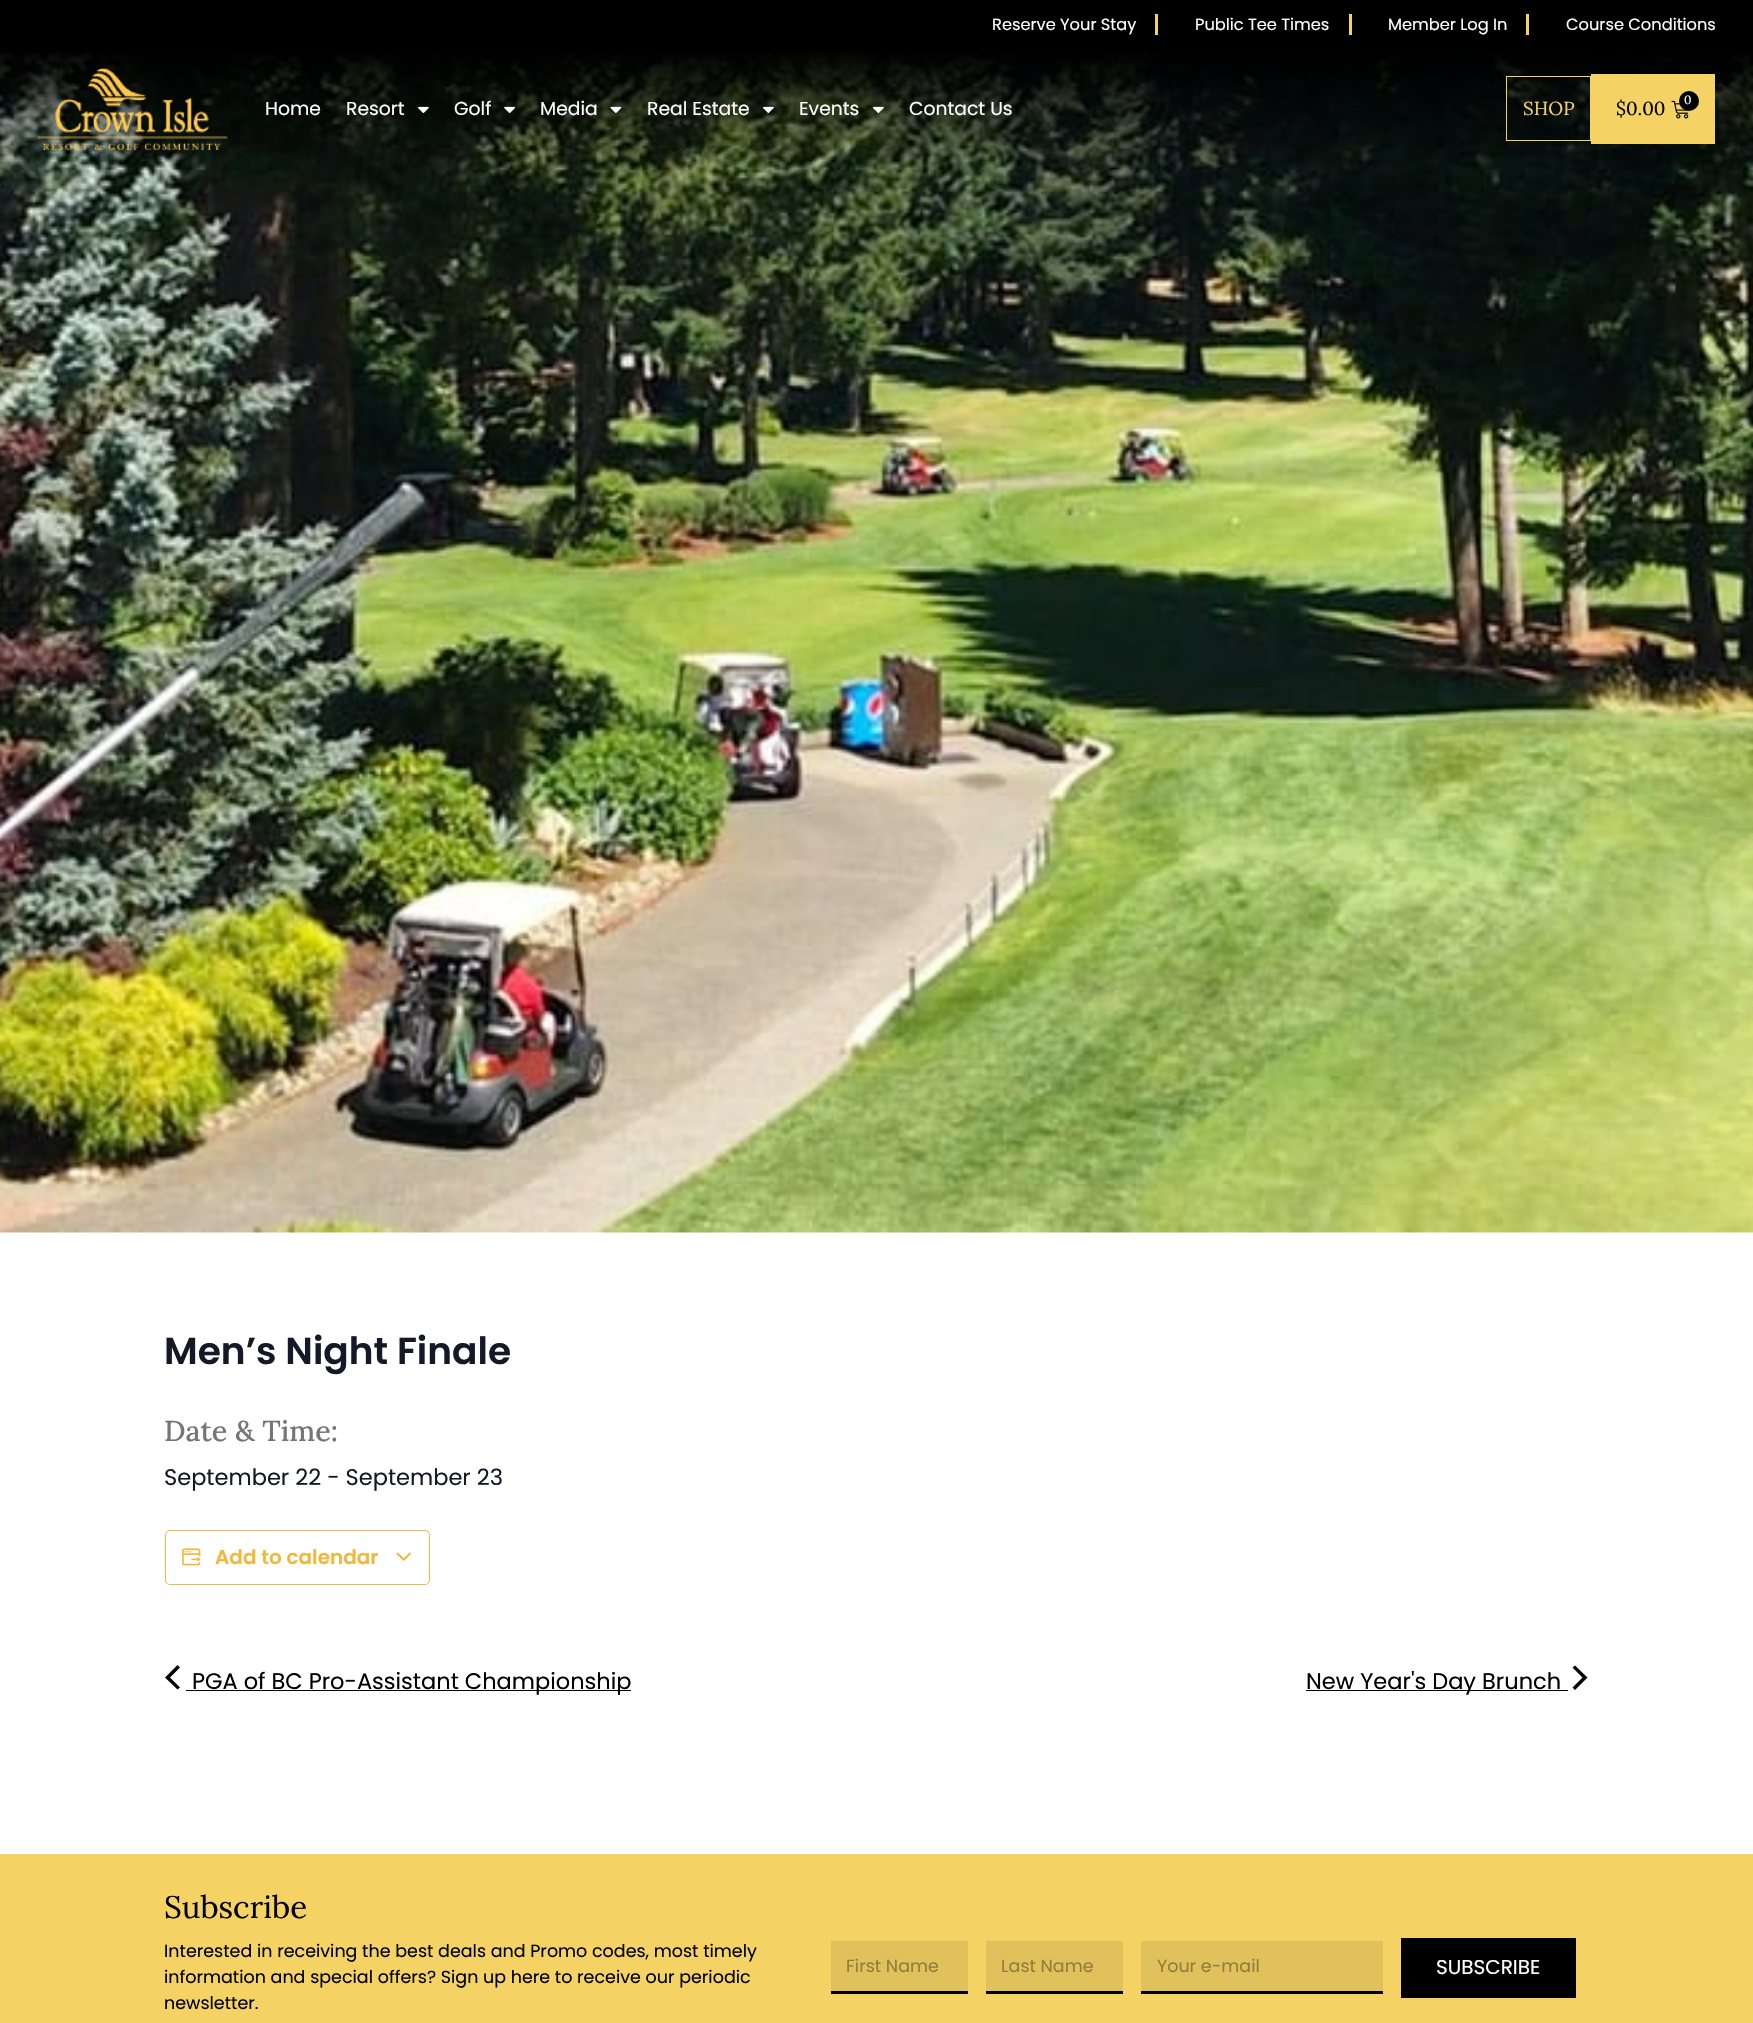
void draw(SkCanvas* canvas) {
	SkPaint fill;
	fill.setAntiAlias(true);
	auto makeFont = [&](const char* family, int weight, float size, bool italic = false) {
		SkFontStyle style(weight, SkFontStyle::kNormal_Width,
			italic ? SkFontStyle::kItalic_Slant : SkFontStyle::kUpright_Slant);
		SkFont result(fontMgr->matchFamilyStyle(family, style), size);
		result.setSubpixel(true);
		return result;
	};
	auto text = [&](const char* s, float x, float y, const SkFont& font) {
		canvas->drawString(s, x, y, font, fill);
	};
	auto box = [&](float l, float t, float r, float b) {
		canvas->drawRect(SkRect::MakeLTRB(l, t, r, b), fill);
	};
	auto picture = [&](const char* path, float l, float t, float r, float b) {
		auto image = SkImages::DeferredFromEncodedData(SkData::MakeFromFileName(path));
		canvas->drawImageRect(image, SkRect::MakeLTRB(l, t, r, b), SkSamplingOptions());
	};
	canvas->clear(0xFFFFFFFF);
	fill.setColor(0xFF000000);
	box(0, 0, 1753, 50);
	fill.setColor(0xFFF4D264);
	box(1155, 14, 1158, 35);
	box(1349, 14, 1352, 35);
	box(1526, 14, 1529, 35);
	picture("image7.png", 0, 50, 1753, 1233);
	picture("image0.png", 37, 68, 228, 150);
	picture("image1.png", 417, 106, 429, 113);
	picture("image2.png", 504, 106, 515, 113);
	picture("image3.png", 610, 106, 622, 113);
	picture("image4.png", 762, 106, 774, 113);
	picture("image5.png", 872, 106, 884, 113);
	fill.setStyle(SkPaint::kStroke_Style);
	fill.setStrokeWidth(1);
	canvas->drawRect(SkRect::MakeLTRB(1506.5f, 76.5f, 1590.5f, 140.5f), fill);
	fill.setStyle(SkPaint::kFill_Style);
	box(1591, 74, 1715, 144);
	picture("image6.png", 1671, 100, 1689, 119);
	fill.setColor(0xFF000000);
	canvas->drawCircle(1689, 101, 10, fill);
	fill.setStyle(SkPaint::kStroke_Style);
	fill.setColor(0xFFF0B83D);
	canvas->drawRoundRect(SkRect::MakeLTRB(165.5f, 1530.5f, 429.5f, 1584.5f), 4.5f, 4.5f, fill);
	picture("image8.png", 182, 1548, 201, 1566);
	picture("image9.png", 396, 1552, 412, 1561);
	fill.setStyle(SkPaint::kFill_Style);
	fill.setColor(0xFF000000);
	box(186, 1690, 631, 1691);
	canvas->drawPath(SkPathBuilder().moveTo(180, 1687.5f).lineTo(177.5f, 1689.5f).lineTo(165, 1677.5f).lineTo(177.5f, 1665).lineTo(180, 1667.5f).lineTo(170, 1677.5f).close().detach(), fill);
	box(1306, 1690, 1568, 1691);
	canvas->drawPath(SkPathBuilder().moveTo(1572.5f, 1667.5f).lineTo(1575, 1665.5f).lineTo(1587.5f, 1677.5f).lineTo(1575, 1690).lineTo(1572.5f, 1687.5f).lineTo(1582.5f, 1677.5f).close().detach(), fill);
	fill.setColor(0xFFF4D264);
	box(0, 1854, 1753, 2023);
	fill.setColor(0xFFE0C15C);
	box(831, 1941, 968, 1991);
	fill.setColor(0xFF000000);
	box(831, 1991, 968, 1994);
	fill.setColor(0xFFE0C15C);
	box(986, 1941, 1123, 1991);
	fill.setColor(0xFF000000);
	box(986, 1991, 1123, 1994);
	fill.setColor(0xFFE0C15C);
	box(1141, 1941, 1383, 1991);
	fill.setColor(0xFF000000);
	box(1141, 1991, 1383, 1994);
	box(1401, 1938, 1576, 1998);
	auto font1 = makeFont("Poppins", 400, 16.25f);
	fill.setColor(0xFFFFFFFF);
	text("Reserve Your Stay", 992, 30, font1);
	text("Public Tee Times", 1195, 30, font1);
	text("Member Log In", 1388, 30, font1);
	text("Course Conditions", 1566, 30, font1);
	auto font2 = makeFont("Poppins", 400, 18.75f);
	text("Home", 265, 115, font2);
	text("Resort", 346, 115, font2);
	text("Golf", 454, 115, font2);
	text("Media", 540, 115, font2);
	text("Real Estate", 647, 115, font2);
	text("Events", 799, 115, font2);
	text("Contact Us", 909, 115, font2);
	auto font3 = makeFont("Lora", 400, 18.75f);
	fill.setColor(0xFFF4D264);
	text("SHOP", 1523, 115, font3);
	fill.setColor(0xFF000000);
	text("$0.00", 1616, 115, font3);
	auto font4 = makeFont("Lora", 400, 12);
	fill.setColor(0xFFFFFFFF);
	text("0", 1684, 104, font4);
	auto font5 = makeFont("Poppins", 600, 37.5f);
	fill.setColor(0xFF141827);
	text("Men’s Night Finale", 164, 1364, font5);
	auto font6 = makeFont("Lora", 500, 28.75f);
	fill.setColor(0xFF757575);
	text("Date & Time:", 164, 1441, font6);
	auto font7 = makeFont("Poppins", 400, 22.5f);
	fill.setColor(0xFF141827);
	text("September 22 - September 23", 164, 1485, font7);
	auto font8 = makeFont("Poppins", 600, 20);
	fill.setColor(0xFFF0B83D);
	text("Add to calendar", 215, 1564, font8);
	fill.setColor(0xFF000000);
	text("PGA of BC Pro-Assistant Championship", 192, 1689, font7);
	text("New Year's Day Brunch", 1306, 1689, font7);
	auto font9 = makeFont("Lora", 400, 31.25f);
	text("Subscribe", 164, 1918, font9);
	auto font10 = makeFont("Poppins", 400, 17.5f);
	text("Interested in receiving the best deals and Promo codes, most timely", 164, 1957, font10);
	text("information and special offers? Sign up here to receive our periodic", 164, 1983, font10);
	text("newsletter.", 164, 2009, font10);
	fill.setColor(0xFF917D3C);
	text("First Name", 846, 1972, font10);
	text("Last Name", 1001, 1972, font10);
	text("Your e-mail", 1157, 1972, font10);
	auto font11 = makeFont("Poppins", 400, 20);
	fill.setColor(0xFFFFFFFF);
	text("SUBSCRIBE", 1436, 1974, font11);
}
